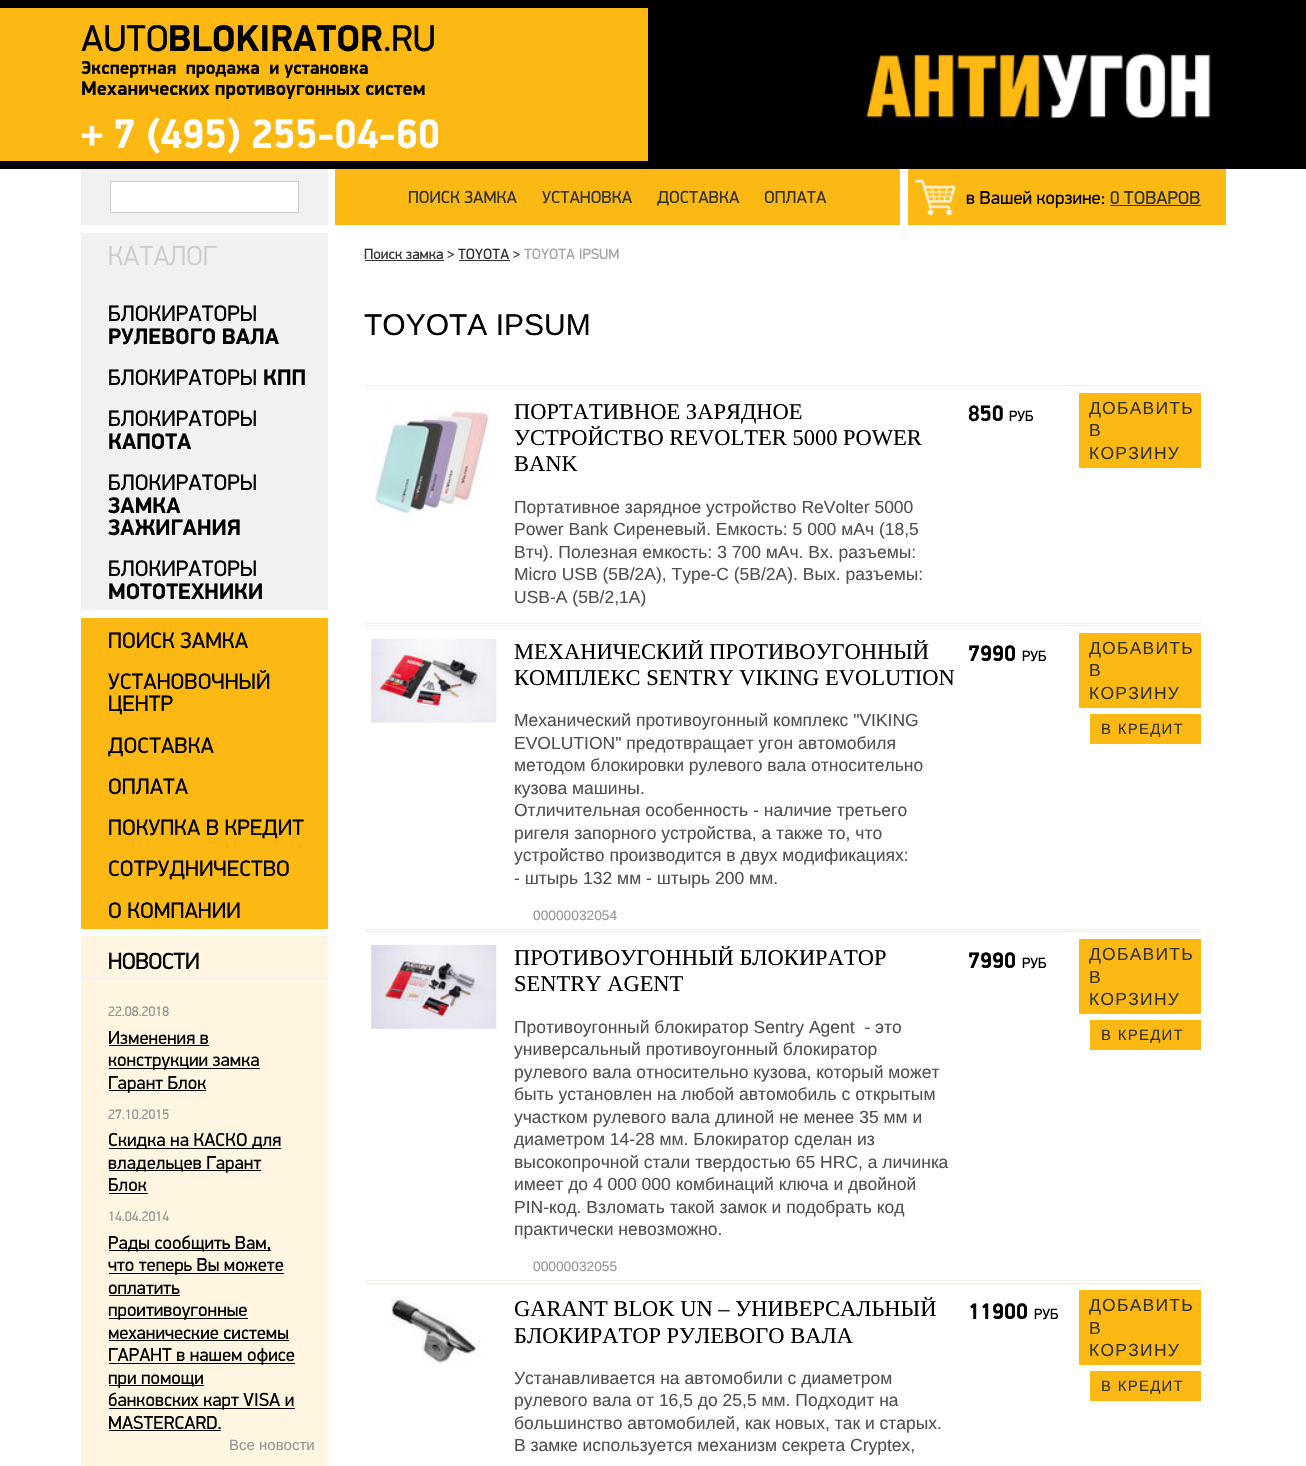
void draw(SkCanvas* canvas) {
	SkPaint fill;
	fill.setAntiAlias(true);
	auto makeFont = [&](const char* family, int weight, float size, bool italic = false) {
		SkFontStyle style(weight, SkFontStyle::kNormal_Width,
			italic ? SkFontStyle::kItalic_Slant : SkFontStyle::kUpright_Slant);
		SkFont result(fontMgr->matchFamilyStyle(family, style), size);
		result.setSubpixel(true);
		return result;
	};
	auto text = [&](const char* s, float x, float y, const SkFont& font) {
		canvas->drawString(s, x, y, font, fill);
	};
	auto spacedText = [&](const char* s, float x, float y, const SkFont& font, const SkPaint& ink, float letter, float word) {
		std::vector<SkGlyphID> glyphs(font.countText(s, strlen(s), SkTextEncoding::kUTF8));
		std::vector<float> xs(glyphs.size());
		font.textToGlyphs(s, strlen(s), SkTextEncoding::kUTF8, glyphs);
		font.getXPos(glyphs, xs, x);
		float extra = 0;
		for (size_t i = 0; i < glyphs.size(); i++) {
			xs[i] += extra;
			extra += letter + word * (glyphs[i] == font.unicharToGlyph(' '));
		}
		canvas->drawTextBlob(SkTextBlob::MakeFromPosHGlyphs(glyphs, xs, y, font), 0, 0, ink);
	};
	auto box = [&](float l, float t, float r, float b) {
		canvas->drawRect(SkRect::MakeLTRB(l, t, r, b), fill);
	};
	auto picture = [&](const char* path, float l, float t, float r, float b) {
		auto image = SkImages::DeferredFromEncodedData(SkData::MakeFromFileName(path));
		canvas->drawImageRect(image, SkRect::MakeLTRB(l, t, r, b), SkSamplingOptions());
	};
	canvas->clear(0xFFFFFFFF);
	fill.setColor(0xFF000000);
	box(655, 8, 1306, 161);
	fill.setColor(0xFFFDB913);
	box(0, 8, 648, 161);
	fill.setColor(0xFF000000);
	box(648, 0, 1306, 8);
	box(648, 161, 1306, 169);
	box(648, 0, 655, 169);
	box(0, 0, 655, 8);
	box(0, 161, 655, 169);
	picture("image0.png", 866, 53, 1211, 118);
	fill.setColor(0xFFFDB913);
	box(335, 169, 1226, 225);
	fill.setColor(0xFFF1F1F1);
	box(81, 169, 328, 225);
	fill.setColor(0xFFFFFFFF);
	canvas->drawRect(SkRect::MakeLTRB(110.5f, 181.5f, 298.5f, 212.5f), fill);
	fill.setStyle(SkPaint::kStroke_Style);
	fill.setStrokeWidth(1);
	fill.setColor(0xFFCECECE);
	canvas->drawRect(SkRect::MakeLTRB(110.5f, 181.5f, 298.5f, 212.5f), fill);
	picture("image1.png", 915, 179, 956, 216);
	fill.setStyle(SkPaint::kFill_Style);
	fill.setColor(0xFFFFFFFF);
	box(900, 169, 908, 225);
	fill.setColor(0xFF333333);
	box(1110, 205, 1201, 206);
	fill.setColor(0xFFF1F1F1);
	box(81, 233, 328, 610);
	fill.setColor(0xFFFDB913);
	box(81, 618, 328, 929);
	fill.setColor(0xFFFFF5E0);
	box(81, 936, 328, 1466);
	fill.setColor(0xFFF1F1F1);
	box(81, 978, 328, 979);
	fill.setColor(0xFF000000);
	box(109, 1045, 209, 1046);
	box(109, 1068, 260, 1069);
	box(109, 1090, 206, 1091);
	box(109, 1148, 281, 1149);
	box(109, 1170, 261, 1171);
	box(109, 1193, 148, 1194);
	box(109, 1250, 271, 1251);
	box(109, 1273, 284, 1274);
	box(109, 1295, 180, 1296);
	box(109, 1318, 248, 1319);
	box(109, 1340, 289, 1341);
	box(109, 1363, 295, 1364);
	box(109, 1385, 204, 1386);
	box(109, 1408, 295, 1409);
	box(109, 1430, 221, 1431);
	fill.setColor(0xFF333333);
	box(365, 260, 444, 261);
	box(459, 260, 510, 261);
	fill.setColor(0xFFECF2E4);
	box(365, 385, 1201, 386);
	box(365, 623, 1201, 624);
	picture("image2.png", 371, 399, 491, 514);
	fill.setColor(0xFFFDB913);
	box(1079, 393, 1201, 468);
	fill.setColor(0xFFECF2E4);
	box(365, 625, 1201, 626);
	box(365, 929, 1201, 930);
	picture("image3.png", 371, 638, 497, 723);
	fill.setColor(0xFFFDB913);
	box(1079, 633, 1201, 708);
	box(1090, 714, 1201, 744);
	fill.setColor(0xFFECF2E4);
	box(365, 931, 1201, 932);
	box(365, 1280, 1201, 1281);
	picture("image4.png", 371, 945, 497, 1029);
	fill.setColor(0xFFFDB913);
	box(1079, 939, 1201, 1014);
	box(1090, 1020, 1201, 1050);
	fill.setColor(0xFFECF2E4);
	box(365, 1283, 1201, 1284);
	picture("image5.png", 391, 1296, 481, 1364);
	fill.setColor(0xFFFDB913);
	box(1079, 1290, 1201, 1365);
	box(1090, 1371, 1201, 1401);
	auto font1 = makeFont("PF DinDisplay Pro", 400, 37.5f);
	fill.setColor(0xFF000000);
	text("AUTO", 81, 51, font1);
	auto font2 = makeFont("PF DinDisplay Pro", 700, 37.5f);
	text("BLOKIRATOR", 168, 51, font2);
	text(".RU", 383, 51, font1);
	auto font3 = makeFont("PF DinDisplay Pro", 700, 18.75f);
	text("Экспертная  продажа  и установка", 81, 74, font3);
	auto font4 = makeFont("PF DinDisplay Pro", 700, 20);
	text("Механических противоугонных систем", 81, 95, font4);
	auto font5 = makeFont("PF DinDisplay Pro", 700, 41.25f);
	fill.setColor(0xFFFFFFFF);
	text("+ 7 (495) 255-04-60", 81, 148, font5);
	auto font6 = makeFont("PF DinDisplay Pro", 400, 17.5f);
	fill.setColor(0xFF333333);
	text("ПОИСК ЗАМКА", 408, 203, font6);
	text("УСТАНОВКА", 542, 203, font6);
	text("ДОСТАВКА", 657, 203, font6);
	text("ОПЛАТА", 764, 203, font6);
	auto font7 = makeFont("PF DinDisplay Pro", 400, 18.75f);
	fill.setColor(0xFF000000);
	text("в Вашей корзине:", 966, 204, font7);
	fill.setColor(0xFF333333);
	text("0 ТОВАРОВ", 1110, 204, font7);
	auto font8 = makeFont("PF DinDisplay Pro", 300, 27.5f);
	fill.setColor(0xFFCCCCCC);
	text("КАТАЛОГ", 108, 265, font8);
	auto font9 = makeFont("PF DinDisplay Pro", 400, 22.5f);
	fill.setColor(0xFF000000);
	text("БЛОКИРАТОРЫ", 108, 321, font9);
	auto font10 = makeFont("PF DinDisplay Pro", 700, 22.5f);
	text("РУЛЕВОГО ВАЛА", 108, 344, font10);
	text("БЛОКИРАТОРЫ", 108, 385, font9);
	text("КПП", 263, 385, font10);
	text("БЛОКИРАТОРЫ", 108, 426, font9);
	text("КАПОТА", 108, 449, font10);
	text("БЛОКИРАТОРЫ", 108, 490, font9);
	text("ЗАМКА", 108, 513, font10);
	text("ЗАЖИГАНИЯ", 108, 535, font10);
	text("БЛОКИРАТОРЫ", 108, 576, font9);
	text("МОТОТЕХНИКИ", 108, 599, font10);
	text("ПОИСК ЗАМКА", 108, 648, font9);
	text("УСТАНОВОЧНЫЙ", 108, 689, font9);
	text("ЦЕНТР", 108, 711, font9);
	text("ДОСТАВКА", 108, 753, font9);
	text("ОПЛАТА", 108, 794, font9);
	text("ПОКУПКА В КРЕДИТ", 108, 835, font9);
	text("СОТРУДНИЧЕСТВО", 108, 876, font9);
	text("О КОМПАНИИ", 108, 918, font9);
	auto font11 = makeFont("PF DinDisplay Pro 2", 700, 22.5f);
	text("НОВОСТИ", 108, 969, font11);
	auto font12 = makeFont("PF DinDisplay Pro", 400, 13.75f);
	fill.setColor(0xFF959595);
	text("22.08.2018", 108, 1016, font12);
	fill.setColor(0xFF000000);
	text("Изменения в", 108, 1044, font7);
	text("конструкции замка", 108, 1066, font7);
	text("Гарант Блок", 108, 1089, font7);
	fill.setColor(0xFF959595);
	text("27.10.2015", 108, 1119, font12);
	fill.setColor(0xFF000000);
	text("Скидка на КАСКО для", 108, 1146, font7);
	text("владельцев Гарант", 108, 1169, font7);
	text("Блок", 108, 1191, font7);
	fill.setColor(0xFF959595);
	text("14.04.2014", 108, 1221, font12);
	fill.setColor(0xFF000000);
	text("Рады сообщить Вам,", 108, 1249, font7);
	text("что теперь Вы можете", 108, 1271, font7);
	text("оплатить", 108, 1294, font7);
	text("проитивоугонные", 108, 1316, font7);
	text("механические системы", 108, 1339, font7);
	text("ГАРАНТ в нашем офисе", 108, 1361, font7);
	text("при помощи", 108, 1384, font7);
	text("банковских карт VISA и", 108, 1406, font7);
	text("MASTERCARD.", 108, 1429, font7);
	auto font13 = makeFont("Liberation Sans", 400, 15);
	fill.setColor(0xFF959595);
	text("Все новости", 229, 1450, font13);
	auto font14 = makeFont("PF DinDisplay Pro", 400, 15);
	fill.setColor(0xFF333333);
	text("Поиск замка > TOYOTA >", 364, 259, font14);
	fill.setColor(0xFFA3A3A3);
	text("TOYOTA IPSUM", 524, 259, font14);
	auto font15 = makeFont("Liberation Sans", 400, 30);
	fill.setColor(0xFF000000);
	text("TOYOTA IPSUM", 364, 335, font15);
	auto font16 = makeFont("Liberation Serif", 400, 22.5f);
	text("ПОРТАТИВНОЕ ЗАРЯДНОЕ", 514, 419, font16);
	text("УСТРОЙСТВО REVOLTER 5000 POWER", 514, 445, font16);
	text("BANK", 514, 471, font16);
	auto font17 = makeFont("Liberation Sans", 400, 17.5f);
	fill.setColor(0xFF505050);
	text("Портативное зарядное устройство ReVolter 5000", 514, 513, font17);
	text("Power Bank Сиреневый. Емкость: 5 000 мАч (18,5", 514, 535, font17);
	text("Втч). Полезная емкость: 3 700 мAч. Вх. разъемы:", 514, 558, font17);
	text("Micro USB (5В/2А), Type-C (5В/2А). Вых. разъемы:", 514, 580, font17);
	text("USB-A (5В/2,1А)", 514, 603, font17);
	fill.setColor(0xFF000000);
	text("850", 968, 421, font10);
	text("РУБ", 1009, 421, font14);
	fill.setColor(0xFF333333);
	spacedText("ДОБАВИТЬ", 1089, 414, font17, fill, 1.25f, 0);
	spacedText("В", 1089, 436, font17, fill, 1.25f, 0);
	spacedText("КОРЗИНУ", 1089, 459, font17, fill, 1.25f, 0);
	fill.setColor(0xFF000000);
	text("МЕХАНИЧЕСКИЙ ПРОТИВОУГОННЫЙ", 514, 659, font16);
	text("КОМПЛЕКС SENTRY VIKING EVOLUTION", 514, 685, font16);
	fill.setColor(0xFF505050);
	text("Механический противоугонный комплекс \"VIKING", 514, 726, font17);
	text("EVOLUTION\" предотвращает угон автомобиля", 514, 749, font17);
	text("методом блокировки рулевого вала относительно", 514, 771, font17);
	text("кузова машины.", 514, 794, font17);
	text("Отличительная особенность - наличие третьего", 514, 816, font17);
	text("ригеля запорного устройства, а также то, что", 514, 839, font17);
	text("устройство производится в двух модификациях:", 514, 861, font17);
	text("- штырь 132 мм - штырь 200 мм.", 514, 884, font17);
	auto font18 = makeFont("Liberation Sans", 400, 13.75f);
	fill.setColor(0xFF959595);
	text("00000032054", 533, 920, font18);
	fill.setColor(0xFF000000);
	text("7990", 968, 661, font10);
	text("РУБ", 1022, 661, font14);
	fill.setColor(0xFF333333);
	spacedText("ДОБАВИТЬ", 1089, 654, font17, fill, 1.25f, 0);
	spacedText("В", 1089, 676, font17, fill, 1.25f, 0);
	spacedText("КОРЗИНУ", 1089, 699, font17, fill, 1.25f, 0);
	spacedText("В КРЕДИТ", 1101, 734, font13, fill, 1.25f, 0);
	fill.setColor(0xFF000000);
	text("ПРОТИВОУГОННЫЙ БЛОКИРАТОР", 514, 965, font16);
	text("SENTRY AGENT", 514, 991, font16);
	fill.setColor(0xFF505050);
	text("Противоугонный блокиратор Sentry Agent  - это", 514, 1033, font17);
	text("универсальный противоугонный блокиратор", 514, 1055, font17);
	text("рулевого вала относительно кузова, который может", 514, 1078, font17);
	text("быть установлен на любой автомобиль с открытым", 514, 1100, font17);
	text("участком рулевого вала длиной не менее 35 мм и", 514, 1123, font17);
	text("диаметром 14-28 мм. Блокиратор сделан из", 514, 1145, font17);
	text("высокопрочной стали твердостью 65 HRC, а личинка", 514, 1168, font17);
	text("имеет до 4 000 000 комбинаций ключа и двойной", 514, 1190, font17);
	text("PIN-код. Взломать такой замок и подобрать код", 514, 1213, font17);
	text("практически невозможно.", 514, 1235, font17);
	fill.setColor(0xFF959595);
	text("00000032055", 533, 1271, font18);
	fill.setColor(0xFF000000);
	text("7990", 968, 968, font10);
	text("РУБ", 1022, 968, font14);
	fill.setColor(0xFF333333);
	spacedText("ДОБАВИТЬ", 1089, 960, font17, fill, 1.25f, 0);
	spacedText("В", 1089, 983, font17, fill, 1.25f, 0);
	spacedText("КОРЗИНУ", 1089, 1005, font17, fill, 1.25f, 0);
	spacedText("В КРЕДИТ", 1101, 1040, font13, fill, 1.25f, 0);
	fill.setColor(0xFF000000);
	text("GARANT BLOK UN – УНИВЕРСАЛЬНЫЙ", 514, 1316, font16);
	text("БЛОКИРАТОР РУЛЕВОГО ВАЛА", 514, 1343, font16);
	fill.setColor(0xFF505050);
	text("Устанавливается на автомобили с диаметром", 514, 1384, font17);
	text("рулевого вала от 16,5 до 25,5 мм. Подходит на", 514, 1406, font17);
	text("большинство автомобилей, как новых, так и старых.", 514, 1429, font17);
	text("В замке используется механизм секрета Cryptex,", 514, 1451, font17);
	fill.setColor(0xFF000000);
	text("11900", 968, 1319, font10);
	text("РУБ", 1034, 1319, font14);
	fill.setColor(0xFF333333);
	spacedText("ДОБАВИТЬ", 1089, 1311, font17, fill, 1.25f, 0);
	spacedText("В", 1089, 1334, font17, fill, 1.25f, 0);
	spacedText("КОРЗИНУ", 1089, 1356, font17, fill, 1.25f, 0);
	spacedText("В КРЕДИТ", 1101, 1391, font13, fill, 1.25f, 0);
}
